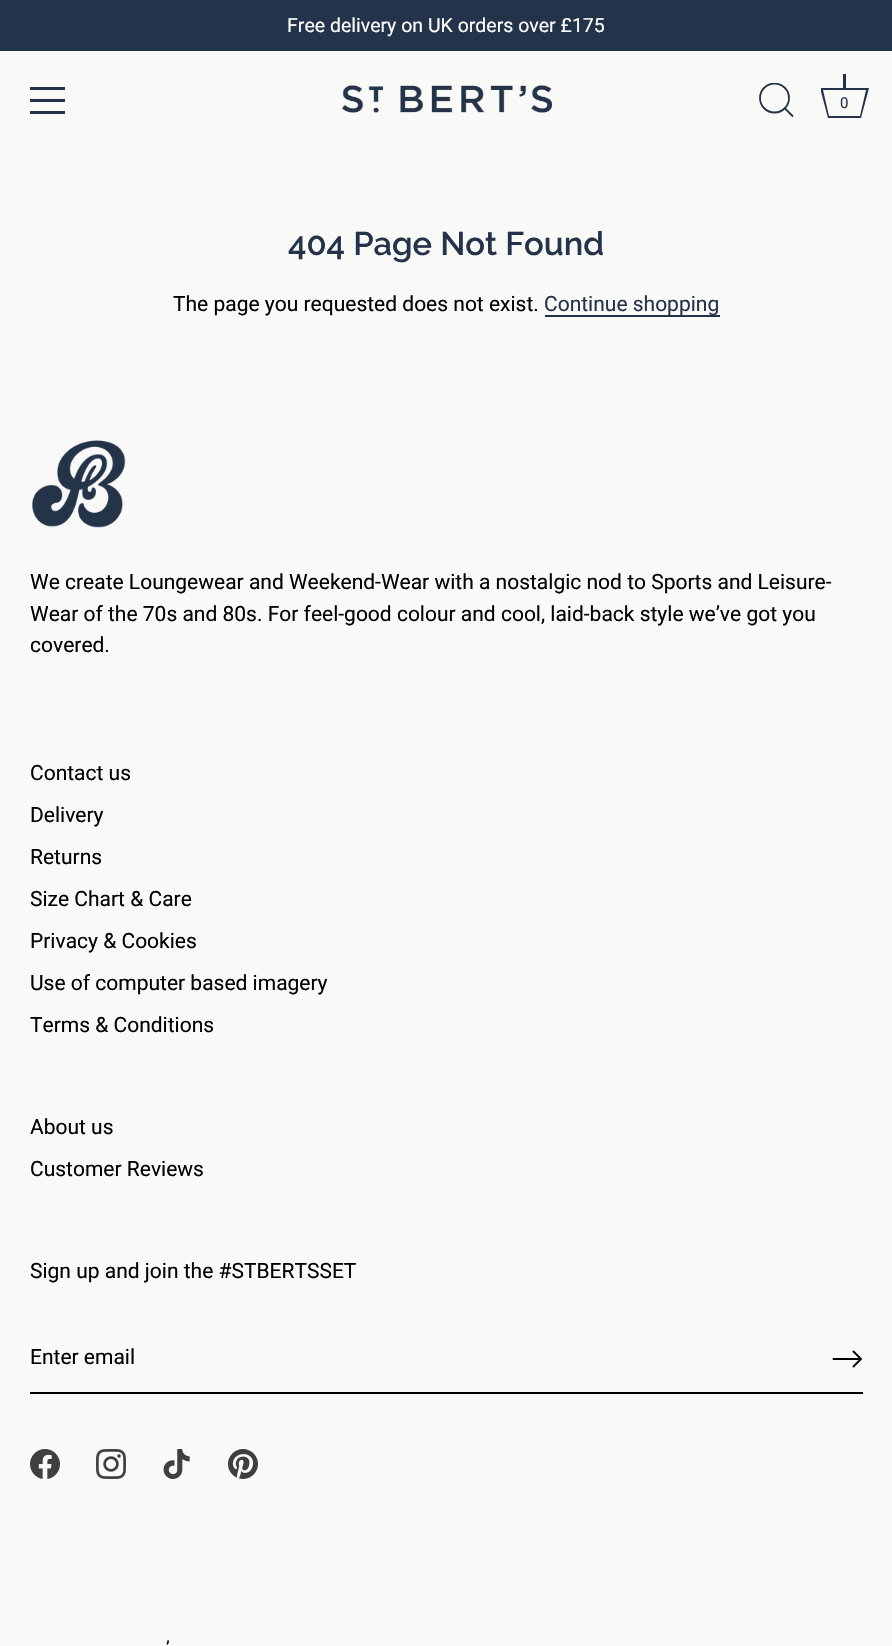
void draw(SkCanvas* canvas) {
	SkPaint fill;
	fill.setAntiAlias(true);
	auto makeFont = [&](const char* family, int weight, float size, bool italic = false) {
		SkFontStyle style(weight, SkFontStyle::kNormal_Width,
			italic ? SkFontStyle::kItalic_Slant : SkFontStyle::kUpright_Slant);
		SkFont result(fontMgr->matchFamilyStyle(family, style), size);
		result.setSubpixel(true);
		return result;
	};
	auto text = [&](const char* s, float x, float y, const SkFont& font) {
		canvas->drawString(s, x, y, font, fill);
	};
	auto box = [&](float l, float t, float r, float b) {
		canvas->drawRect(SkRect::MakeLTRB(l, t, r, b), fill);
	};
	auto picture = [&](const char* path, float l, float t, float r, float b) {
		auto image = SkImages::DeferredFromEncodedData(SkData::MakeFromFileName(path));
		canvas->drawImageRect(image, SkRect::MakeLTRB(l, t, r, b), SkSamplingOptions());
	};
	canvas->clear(0xFFF9F9F7);
	fill.setColor(0xFF233349);
	box(0, 0, 892, 51);
	box(30, 87, 65, 90);
	box(30, 99, 65, 102);
	box(30, 111, 65, 114);
	picture("image0.png", 341, 85, 552, 113);
	canvas->save();
	canvas->clipRect(SkRect::MakeLTRB(759, 83, 795, 119));
	fill.setStyle(SkPaint::kStroke_Style);
	fill.setStrokeWidth(1.8f);
	canvas->drawCircle(774.5f, 98, 14.5f, fill);
	canvas->restore();
	fill.setStrokeCap(SkPaint::kRound_Cap);
	fill.setStrokeJoin(SkPaint::kRound_Join);
	canvas->drawPath(SkPathBuilder().moveTo(792.5f, 116).lineTo(785, 108.5f).detach(), fill);
	fill.setStyle(SkPaint::kFill_Style);
	box(843, 74, 846, 88);
	canvas->save();
	canvas->clipRect(SkRect::MakeLTRB(821, 72, 869, 120));
	canvas->drawPath(SkPathBuilder().moveTo(866, 90).lineTo(860, 116).lineTo(829, 116).lineTo(823, 90).lineTo(866, 90).moveTo(869, 88).lineTo(820, 88).lineTo(828, 118).lineTo(861, 118).close().detach(), fill);
	canvas->restore();
	box(545, 315, 720, 317);
	picture("image1.png", 32, 440, 126, 528);
	fill.setColor(0xFF000000);
	box(30, 1392, 863, 1394);
	fill.setStyle(SkPaint::kStroke_Style);
	fill.setStrokeWidth(1.9f);
	fill.setStrokeJoin(SkPaint::kMiter_Join);
	canvas->drawPath(SkPathBuilder().moveTo(853.5f, 1366.5f).lineTo(861, 1359).lineTo(853.5f, 1351.5f).detach(), fill);
	fill.setStrokeJoin(SkPaint::kRound_Join);
	canvas->drawPath(SkPathBuilder().moveTo(860, 1359).lineTo(833.5f, 1359).detach(), fill);
	picture("image2.png", 30, 1449, 60, 1479);
	picture("image3.png", 96, 1449, 126, 1479);
	picture("image4.png", 163, 1449, 190, 1479);
	picture("image5.png", 228, 1449, 258, 1479);
	auto font1 = makeFont("Roboto", 400, 19.5f);
	fill.setStyle(SkPaint::kFill_Style);
	fill.setColor(0xFFFFFFFF);
	text("Free delivery on UK orders over £175", 287, 32, font1);
	auto font2 = makeFont("Roboto", 400, 15);
	fill.setColor(0xFF233349);
	text("0", 840, 108, font2);
	auto font3 = makeFont("Raleway", 600, 32.75f);
	text("404 Page Not Found", 288, 255, font3);
	auto font4 = makeFont("Roboto", 400, 21);
	fill.setColor(0xFF000000);
	text("The page you requested does not exist.", 173, 311, font4);
	fill.setColor(0xFF233349);
	text("Continue shopping", 544, 311, font4);
	fill.setColor(0xFF000000);
	text("We create Loungewear and Weekend-Wear with a nostalgic nod to Sports and Leisure-", 30, 589, font4);
	text("Wear of the 70s and 80s. For feel-good colour and cool, laid-back style we’ve got you", 30, 621, font4);
	text("covered.", 30, 652, font4);
	text("Contact us", 30, 780, font4);
	text("Delivery", 30, 822, font4);
	text("Returns", 30, 864, font4);
	text("Size Chart & Care", 30, 906, font4);
	text("Privacy & Cookies", 30, 948, font4);
	text("Use of computer based imagery", 30, 990, font4);
	text("Terms & Conditions", 30, 1032, font4);
	text("About us", 30, 1134, font4);
	text("Customer Reviews", 30, 1176, font4);
	text("Sign up and join the #STBERTSSET", 30, 1278, font4);
	text("Enter email", 30, 1364, font4);
	auto font5 = makeFont("Roboto", 400, 18);
	text("’", 166, 1654, font5);
}
